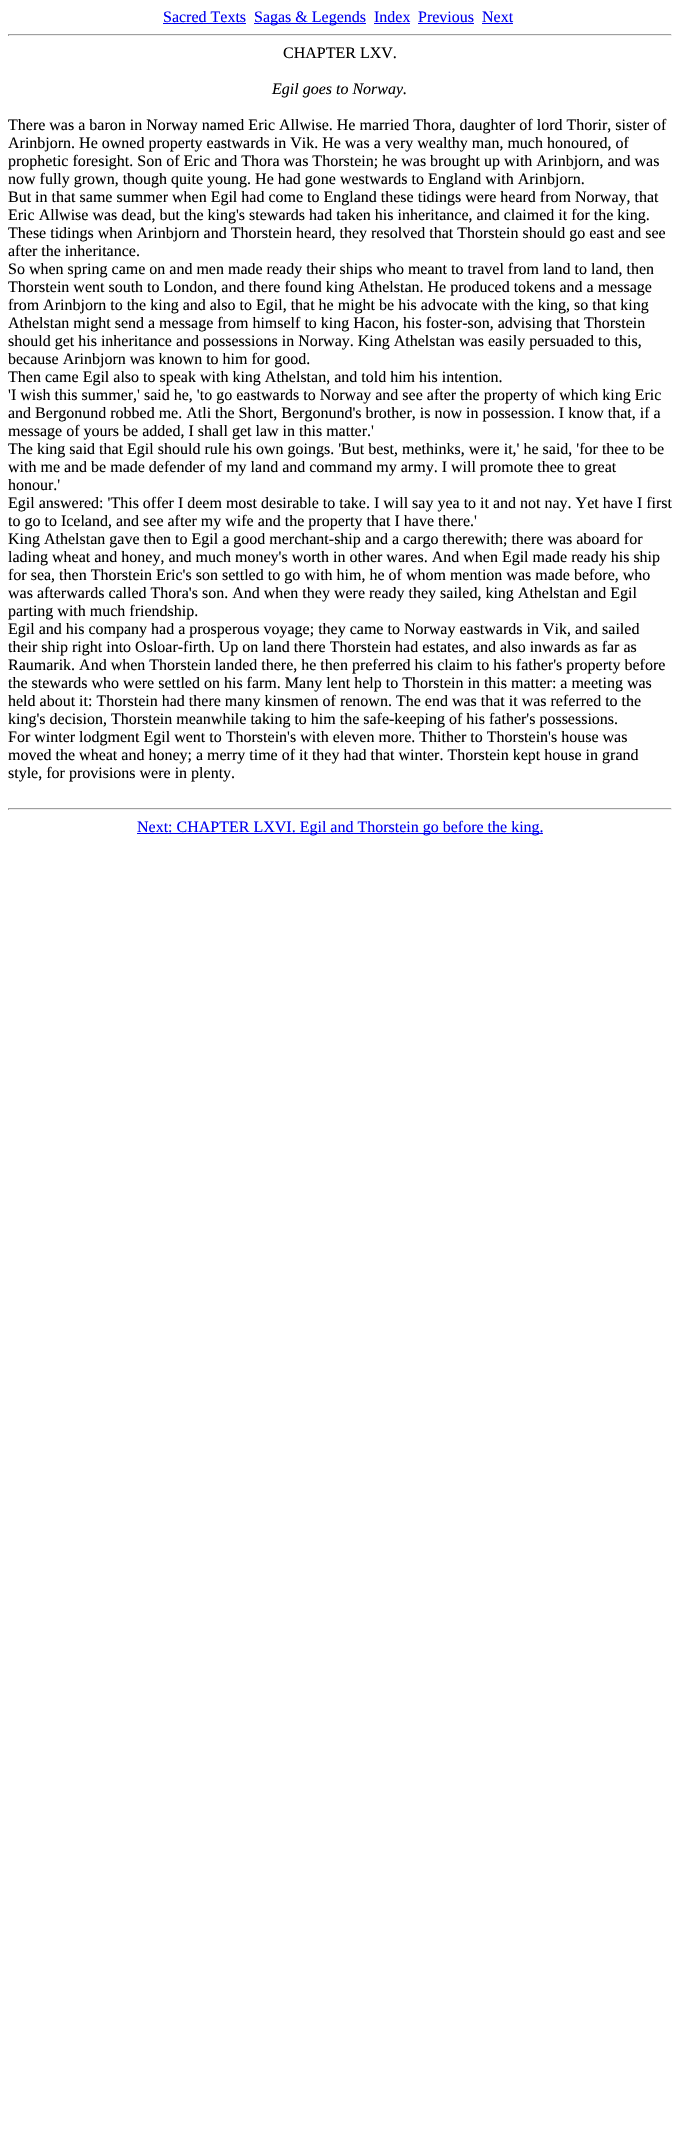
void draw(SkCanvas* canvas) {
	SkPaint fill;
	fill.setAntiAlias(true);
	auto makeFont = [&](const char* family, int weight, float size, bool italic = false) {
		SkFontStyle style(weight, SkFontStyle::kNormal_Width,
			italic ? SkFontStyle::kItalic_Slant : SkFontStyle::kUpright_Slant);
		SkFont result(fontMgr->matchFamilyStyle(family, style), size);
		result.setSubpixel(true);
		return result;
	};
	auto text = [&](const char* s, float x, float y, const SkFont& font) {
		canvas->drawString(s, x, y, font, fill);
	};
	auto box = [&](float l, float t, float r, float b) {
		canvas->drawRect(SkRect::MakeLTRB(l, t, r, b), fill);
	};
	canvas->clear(0xFFFFFFFF);
	fill.setColor(0xFF0000EE);
	box(163, 23, 246, 24);
	box(254, 23, 366, 24);
	box(374, 23, 410, 24);
	box(418, 23, 474, 24);
	box(482, 23, 513, 24);
	fill.setColor(0xFF9F9F9F);
	box(8, 34, 672, 35);
	fill.setColor(0xFFEEEEEE);
	box(671, 34, 672, 36);
	box(8, 35, 672, 36);
	fill.setColor(0xFF9F9F9F);
	box(8, 34, 9, 36);
	box(8, 808, 672, 809);
	fill.setColor(0xFFEEEEEE);
	box(671, 808, 672, 810);
	box(8, 809, 672, 810);
	fill.setColor(0xFF9F9F9F);
	box(8, 808, 9, 810);
	fill.setColor(0xFF0000EE);
	box(137, 833, 543, 834);
	auto font1 = makeFont("Liberation Serif", 400, 16);
	text("Sacred Texts", 163, 22, font1);
	text("Sagas & Legends", 254, 22, font1);
	text("Index", 374, 22, font1);
	text("Previous", 418, 22, font1);
	text("Next", 482, 22, font1);
	fill.setColor(0xFF000000);
	text("CHAPTER LXV.", 283, 58, font1);
	auto font2 = makeFont("Liberation Serif", 400, 16, true);
	text("Egil goes to Norway.", 272, 94, font2);
	text("There was a baron in Norway named Eric Allwise. He married Thora, daughter of lord Thorir, sister of", 8, 130, font1);
	text("Arinbjorn. He owned property eastwards in Vik. He was a very wealthy man, much honoured, of", 8, 148, font1);
	text("prophetic foresight. Son of Eric and Thora was Thorstein; he was brought up with Arinbjorn, and was", 8, 166, font1);
	text("now fully grown, though quite young. He had gone westwards to England with Arinbjorn.", 8, 184, font1);
	text("But in that same summer when Egil had come to England these tidings were heard from Norway, that", 8, 202, font1);
	text("Eric Allwise was dead, but the king's stewards had taken his inheritance, and claimed it for the king.", 8, 220, font1);
	text("These tidings when Arinbjorn and Thorstein heard, they resolved that Thorstein should go east and see", 8, 238, font1);
	text("after the inheritance.", 8, 256, font1);
	text("So when spring came on and men made ready their ships who meant to travel from land to land, then", 8, 274, font1);
	text("Thorstein went south to London, and there found king Athelstan. He produced tokens and a message", 8, 292, font1);
	text("from Arinbjorn to the king and also to Egil, that he might be his advocate with the king, so that king", 8, 310, font1);
	text("Athelstan might send a message from himself to king Hacon, his foster-son, advising that Thorstein", 8, 328, font1);
	text("should get his inheritance and possessions in Norway. King Athelstan was easily persuaded to this,", 8, 346, font1);
	text("because Arinbjorn was known to him for good.", 8, 364, font1);
	text("Then came Egil also to speak with king Athelstan, and told him his intention.", 8, 382, font1);
	text("'I wish this summer,' said he, 'to go eastwards to Norway and see after the property of which king Eric", 8, 400, font1);
	text("and Bergonund robbed me. Atli the Short, Bergonund's brother, is now in possession. I know that, if a", 8, 418, font1);
	text("message of yours be added, I shall get law in this matter.'", 8, 436, font1);
	text("The king said that Egil should rule his own goings. 'But best, methinks, were it,' he said, 'for thee to be", 8, 454, font1);
	text("with me and be made defender of my land and command my army. I will promote thee to great", 8, 472, font1);
	text("honour.'", 8, 490, font1);
	text("Egil answered: 'This offer I deem most desirable to take. I will say yea to it and not nay. Yet have I first", 8, 508, font1);
	text("to go to Iceland, and see after my wife and the property that I have there.'", 8, 526, font1);
	text("King Athelstan gave then to Egil a good merchant-ship and a cargo therewith; there was aboard for", 8, 544, font1);
	text("lading wheat and honey, and much money's worth in other wares. And when Egil made ready his ship", 8, 562, font1);
	text("for sea, then Thorstein Eric's son settled to go with him, he of whom mention was made before, who", 8, 580, font1);
	text("was afterwards called Thora's son. And when they were ready they sailed, king Athelstan and Egil", 8, 598, font1);
	text("parting with much friendship.", 8, 616, font1);
	text("Egil and his company had a prosperous voyage; they came to Norway eastwards in Vik, and sailed", 8, 634, font1);
	text("their ship right into Osloar-firth. Up on land there Thorstein had estates, and also inwards as far as", 8, 652, font1);
	text("Raumarik. And when Thorstein landed there, he then preferred his claim to his father's property before", 8, 670, font1);
	text("the stewards who were settled on his farm. Many lent help to Thorstein in this matter: a meeting was", 8, 688, font1);
	text("held about it: Thorstein had there many kinsmen of renown. The end was that it was referred to the", 8, 706, font1);
	text("king's decision, Thorstein meanwhile taking to him the safe-keeping of his father's possessions.", 8, 724, font1);
	text("For winter lodgment Egil went to Thorstein's with eleven more. Thither to Thorstein's house was", 8, 742, font1);
	text("moved the wheat and honey; a merry time of it they had that winter. Thorstein kept house in grand", 8, 760, font1);
	text("style, for provisions were in plenty.", 8, 778, font1);
	fill.setColor(0xFF0000EE);
	text("Next: CHAPTER LXVI. Egil and Thorstein go before the king.", 137, 832, font1);
}
